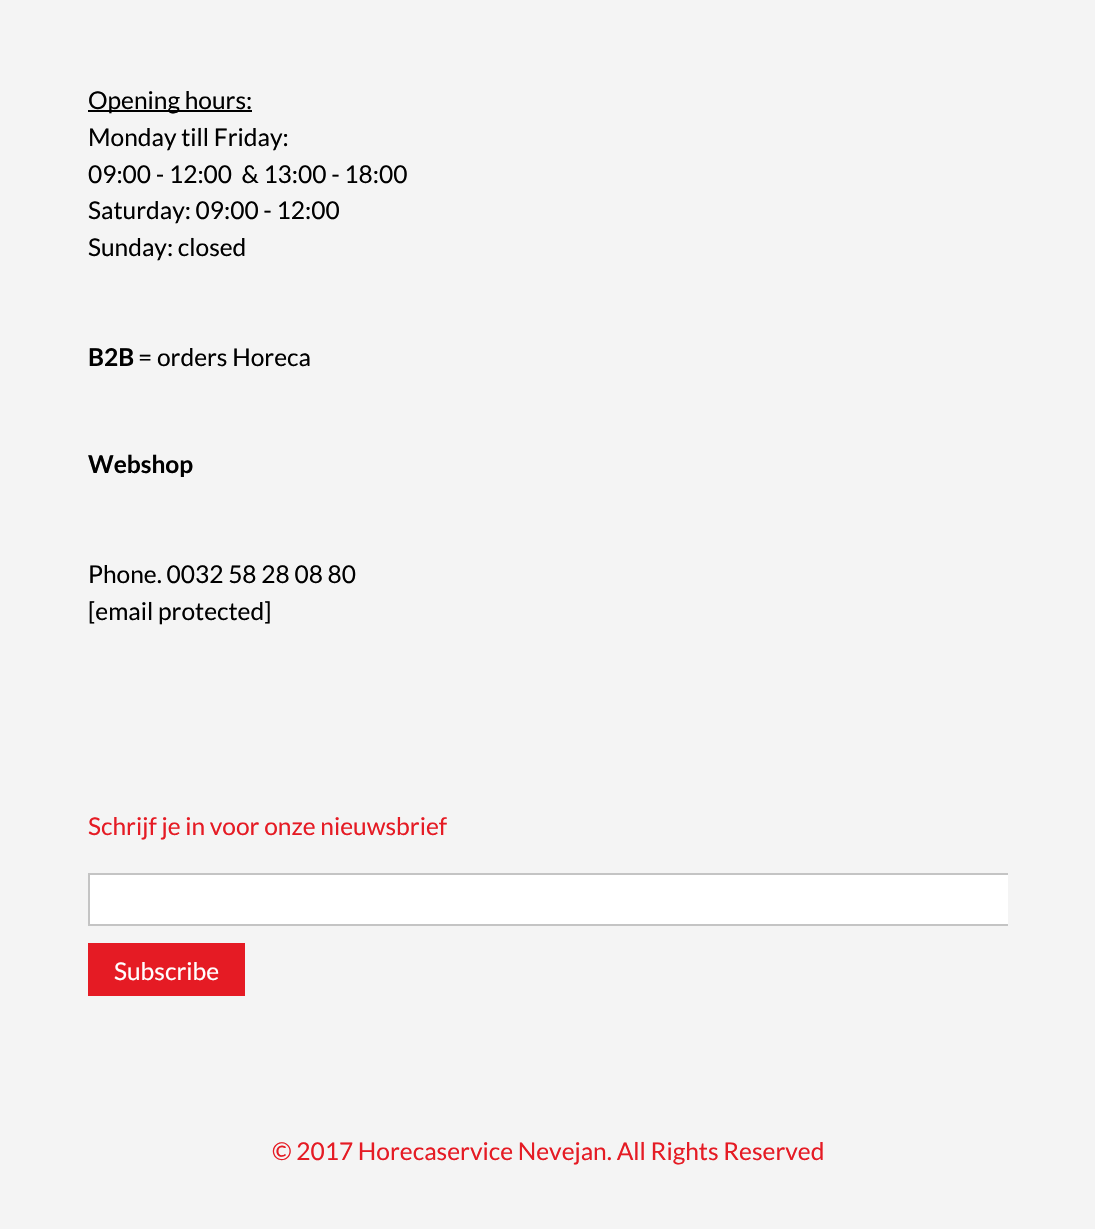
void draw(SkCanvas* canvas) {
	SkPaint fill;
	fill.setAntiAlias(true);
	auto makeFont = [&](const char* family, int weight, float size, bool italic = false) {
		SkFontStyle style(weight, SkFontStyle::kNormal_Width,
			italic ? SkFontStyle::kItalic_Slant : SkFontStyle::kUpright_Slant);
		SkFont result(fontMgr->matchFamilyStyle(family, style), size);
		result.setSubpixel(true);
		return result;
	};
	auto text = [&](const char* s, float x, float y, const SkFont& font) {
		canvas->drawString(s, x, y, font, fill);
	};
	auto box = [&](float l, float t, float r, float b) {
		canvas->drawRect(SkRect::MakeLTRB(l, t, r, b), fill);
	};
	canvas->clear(0xFFF4F4F4);
	fill.setColor(0xFF000000);
	box(88, 110, 252, 112);
	fill.setColor(0xFFFFFFFF);
	box(90, 875, 1008, 924);
	fill.setColor(0xFFC4C4C4);
	box(88, 873, 1008, 875);
	box(88, 924, 1008, 926);
	box(88, 873, 90, 926);
	fill.setColor(0xFFE51B24);
	box(88, 943, 245, 996);
	auto font1 = makeFont("Lato", 400, 24.5f);
	fill.setColor(0xFF000000);
	text("Opening hours:", 88, 109, font1);
	text("Monday till Friday:", 88, 146, font1);
	text("09:00 - 12:00  & 13:00 - 18:00", 88, 183, font1);
	text("Saturday: 09:00 - 12:00", 88, 219, font1);
	text("Sunday: closed", 88, 256, font1);
	auto font2 = makeFont("Lato", 700, 24.5f);
	text("B2B", 88, 366, font2);
	text("= orders Horeca", 138, 366, font1);
	text("Webshop", 88, 473, font2);
	text("Phone. 0032 58 28 08 80", 88, 583, font1);
	text("[email protected]", 88, 620, font1);
	fill.setColor(0xFFE51B24);
	text("Schrijf je in voor onze nieuwsbrief", 88, 835, font1);
	fill.setColor(0xFFFFFFFF);
	text("Subscribe", 114, 980, font1);
	fill.setColor(0xFFE51B24);
	text("© 2017 Horecaservice Nevejan. All Rights Reserved", 272, 1160, font1);
}
